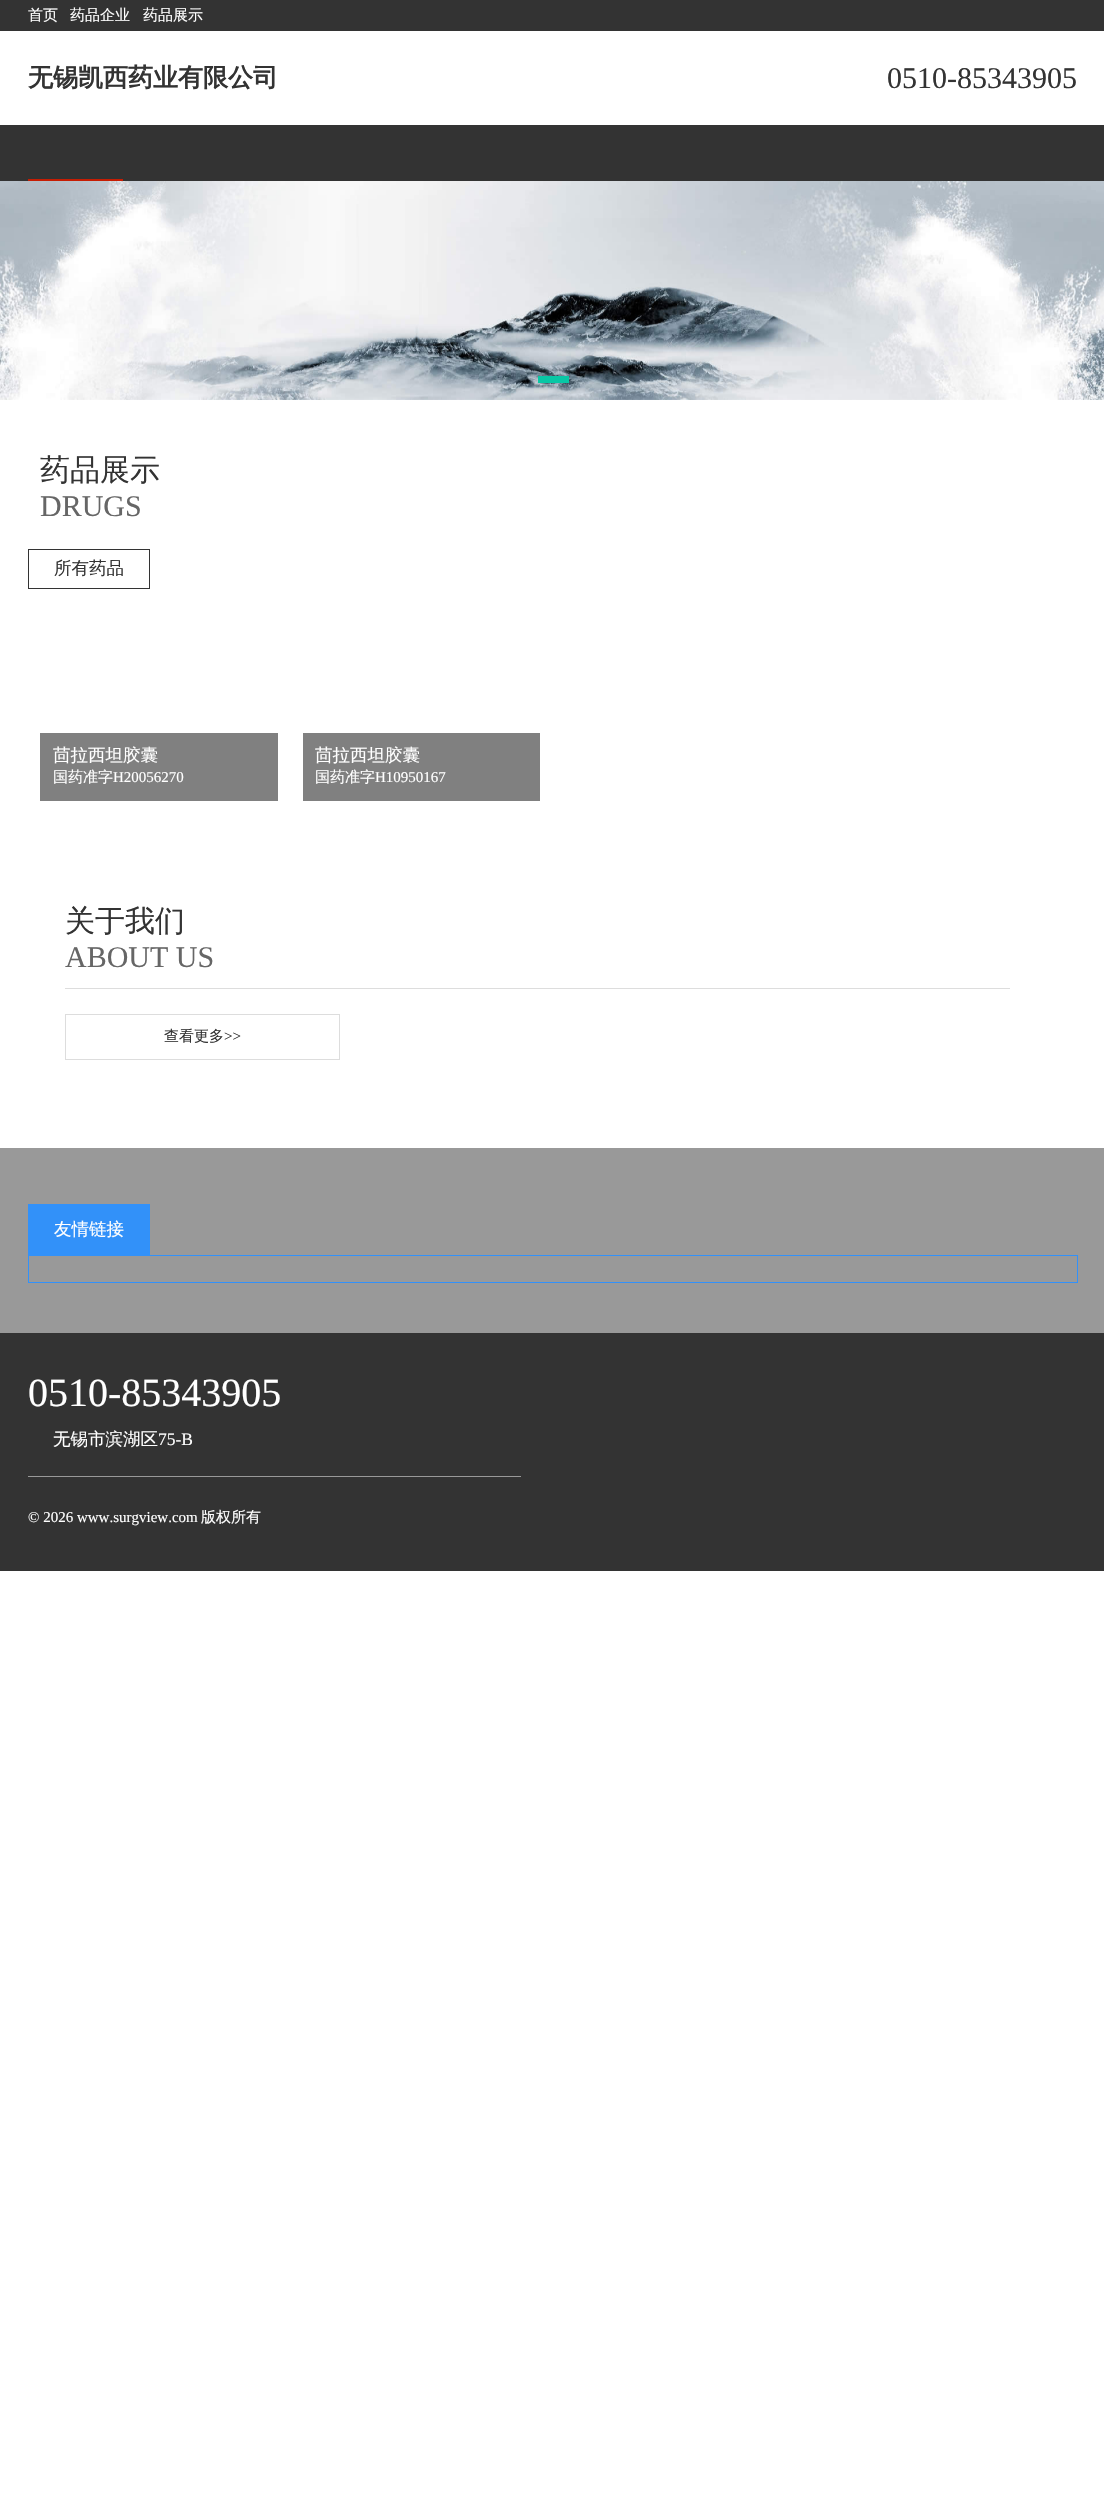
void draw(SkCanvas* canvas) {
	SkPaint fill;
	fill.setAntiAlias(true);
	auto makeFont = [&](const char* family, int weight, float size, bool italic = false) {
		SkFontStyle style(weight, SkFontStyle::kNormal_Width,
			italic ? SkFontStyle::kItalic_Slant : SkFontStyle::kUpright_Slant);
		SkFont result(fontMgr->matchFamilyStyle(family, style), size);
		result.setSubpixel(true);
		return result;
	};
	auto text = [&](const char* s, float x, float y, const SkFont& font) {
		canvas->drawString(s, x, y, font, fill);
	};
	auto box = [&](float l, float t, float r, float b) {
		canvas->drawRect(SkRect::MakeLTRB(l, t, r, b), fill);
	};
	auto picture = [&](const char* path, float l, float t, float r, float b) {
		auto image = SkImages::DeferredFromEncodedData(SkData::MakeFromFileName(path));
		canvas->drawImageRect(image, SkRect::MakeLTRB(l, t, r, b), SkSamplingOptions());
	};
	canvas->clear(0xFFFFFFFF);
	fill.setColor(0xFF333333);
	box(0, 0, 1104, 31);
	box(0, 125, 1104, 181);
	fill.setColor(0xFFC61D03);
	box(28, 179, 123, 181);
	picture("image1.png", 0, 399, 1104, 400);
	picture("image0.png", 0, 181, 1104, 400);
	fill.setColor(0xFF09C7A5);
	box(538, 376, 569, 383);
	fill.setStyle(SkPaint::kStroke_Style);
	fill.setStrokeWidth(1);
	fill.setColor(0xFF333333);
	canvas->drawRect(SkRect::MakeLTRB(28.5f, 549.5f, 149.5f, 588.5f), fill);
	fill.setStyle(SkPaint::kFill_Style);
	fill.setColor(0xFF808080);
	box(40, 733, 278, 801);
	box(303, 733, 540, 801);
	fill.setColor(0xFFDDDDDD);
	box(65, 988, 1010, 989);
	fill.setStyle(SkPaint::kStroke_Style);
	canvas->drawRect(SkRect::MakeLTRB(65.5f, 1014.5f, 339.5f, 1059.5f), fill);
	fill.setStyle(SkPaint::kFill_Style);
	fill.setColor(0xFF999999);
	box(0, 1148, 1104, 1333);
	fill.setColor(0xFF3291F9);
	box(28, 1204, 150, 1205);
	box(149, 1204, 150, 1255);
	box(28, 1204, 29, 1255);
	box(29, 1205, 149, 1255);
	fill.setStyle(SkPaint::kStroke_Style);
	canvas->drawRect(SkRect::MakeLTRB(28.5f, 1255.5f, 1077.5f, 1282.5f), fill);
	fill.setStyle(SkPaint::kFill_Style);
	fill.setColor(0xFF333333);
	box(0, 1333, 1104, 1571);
	fill.setColor(0xFF999999);
	box(28, 1476, 521, 1477);
	auto font1 = makeFont("WenQuanYi Zen Hei", 500, 15);
	fill.setColor(0xFFFFFFFF);
	text("首页", 28, 20, font1);
	text("药品企业", 70, 20, font1);
	text("药品展示", 143, 20, font1);
	auto font2 = makeFont("WenQuanYi Zen Hei", 700, 25);
	fill.setColor(0xFF333333);
	text("无锡凯西药业有限公司", 28, 86, font2);
	auto font3 = makeFont("Liberation Serif", 400, 30);
	text("0510-85343905", 887, 88, font3);
	auto font4 = makeFont("WenQuanYi Zen Hei", 500, 30);
	text("药品展示", 40, 480, font4);
	fill.setColor(0xFF666666);
	text("DRUGS", 40, 516, font3);
	auto font5 = makeFont("WenQuanYi Zen Hei", 500, 17.5f);
	fill.setColor(0xFF333333);
	text("所有药品", 54, 574, font5);
	fill.setColor(0xFFFFFFFF);
	text("茴拉西坦胶囊", 53, 761, font5);
	text("国药准字", 53, 782, font1);
	auto font6 = makeFont("Liberation Serif", 400, 15);
	text("H20056270", 113, 782, font6);
	text("茴拉西坦胶囊", 315, 761, font5);
	text("国药准字", 315, 782, font1);
	text("H10950167", 375, 782, font6);
	fill.setColor(0xFF333333);
	text("关于我们", 65, 931, font4);
	fill.setColor(0xFF666666);
	text("ABOUT US", 65, 967, font3);
	fill.setColor(0xFF333333);
	text("查看更多", 164, 1041, font1);
	text(">>", 224, 1041, font6);
	fill.setColor(0xFFFFFFFF);
	text("友情链接", 54, 1235, font5);
	auto font7 = makeFont("Liberation Serif", 400, 40);
	text("0510-85343905", 28, 1406, font7);
	text("无锡市滨湖区", 53, 1445, font5);
	auto font8 = makeFont("Liberation Serif", 400, 17.5f);
	text("75-B", 158, 1445, font8);
	text("© 2026 www.surgview.com", 28, 1522, font6);
	text("版权所有", 201, 1522, font1);
}
